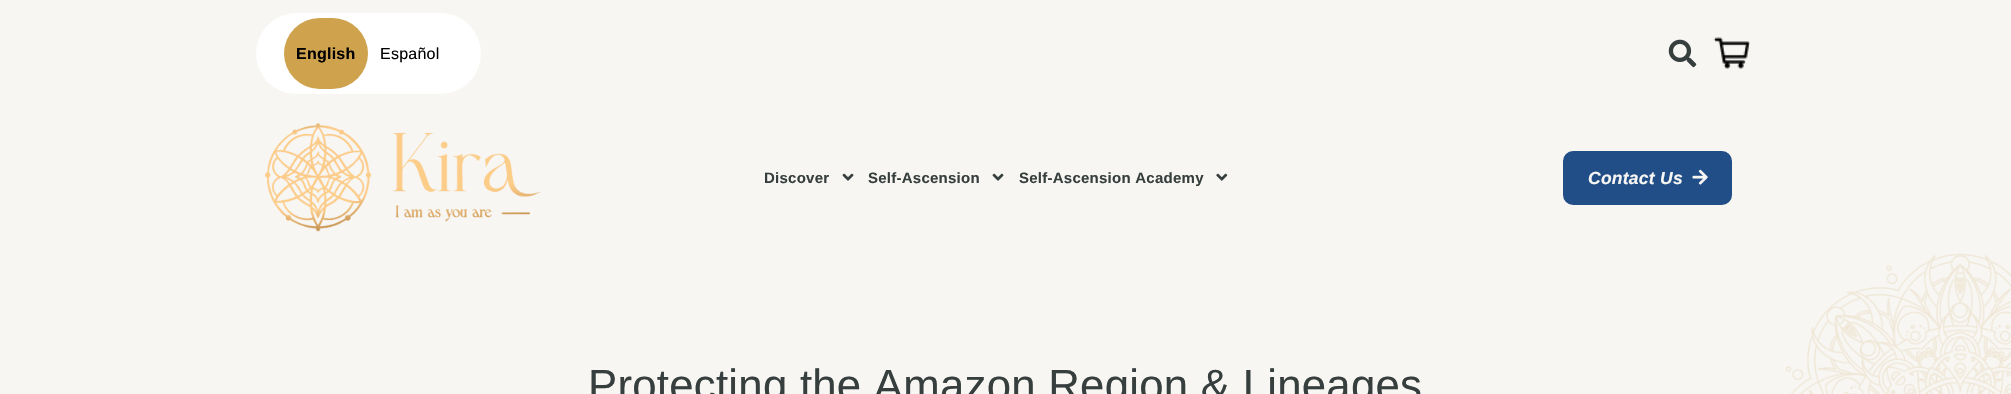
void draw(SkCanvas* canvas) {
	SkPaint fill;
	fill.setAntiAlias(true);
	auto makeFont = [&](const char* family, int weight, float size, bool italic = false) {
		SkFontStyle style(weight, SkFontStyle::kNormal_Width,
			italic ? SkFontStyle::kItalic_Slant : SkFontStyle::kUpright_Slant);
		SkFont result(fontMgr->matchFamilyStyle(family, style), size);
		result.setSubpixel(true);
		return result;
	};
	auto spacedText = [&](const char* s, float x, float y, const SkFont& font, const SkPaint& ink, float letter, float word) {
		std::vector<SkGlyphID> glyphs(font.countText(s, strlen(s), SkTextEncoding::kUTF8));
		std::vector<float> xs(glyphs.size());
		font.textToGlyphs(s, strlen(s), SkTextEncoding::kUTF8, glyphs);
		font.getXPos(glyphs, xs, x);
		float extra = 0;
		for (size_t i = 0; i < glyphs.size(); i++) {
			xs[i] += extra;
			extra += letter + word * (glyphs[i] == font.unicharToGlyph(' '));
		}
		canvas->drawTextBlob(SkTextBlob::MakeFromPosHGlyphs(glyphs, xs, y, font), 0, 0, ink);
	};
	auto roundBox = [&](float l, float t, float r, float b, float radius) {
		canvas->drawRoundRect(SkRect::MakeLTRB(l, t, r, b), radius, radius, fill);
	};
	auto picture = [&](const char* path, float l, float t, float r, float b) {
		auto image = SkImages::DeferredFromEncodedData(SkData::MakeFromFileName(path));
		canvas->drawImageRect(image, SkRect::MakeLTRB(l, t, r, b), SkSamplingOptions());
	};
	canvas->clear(0xFFF7F6F3);
	fill.setColor(0xFFFFFFFF);
	roundBox(256, 13, 481, 94, 40.5f);
	fill.setColor(0xFFCFA24D);
	roundBox(284, 18, 368, 89, 35.5f);
	picture("image0.png", 1668, 39, 1697, 68);
	picture("image1.png", 1713, 37, 1750, 69);
	picture("image2.png", 264, 123, 541, 232);
	picture("image3.png", 842, 173, 854, 181);
	picture("image3.png", 992, 173, 1004, 181);
	picture("image4.png", 1216, 173, 1228, 181);
	fill.setColor(0xFF224E88);
	canvas->drawRoundRect(SkRect::MakeLTRB(1561.5f, 149.5f, 1733.5f, 206.5f), 11.5f, 11.5f, fill);
	fill.setStyle(SkPaint::kStroke_Style);
	fill.setStrokeWidth(3);
	fill.setColor(0xFFF7F6F3);
	canvas->drawRoundRect(SkRect::MakeLTRB(1561.5f, 149.5f, 1733.5f, 206.5f), 11.5f, 11.5f, fill);
	picture("image5.png", 1692, 169, 1708, 185);
	picture("image6.png", 1785, 253, 2011, 394);
	auto font1 = makeFont("Liberation Sans", 700, 16);
	fill.setStyle(SkPaint::kFill_Style);
	fill.setColor(0xFF000000);
	spacedText("English", 296, 59, font1, fill, 0.25f, 0);
	auto font2 = makeFont("Liberation Sans", 400, 16);
	spacedText("Español", 380, 59, font2, fill, 0.25f, 0);
	auto font3 = makeFont("Liberation Sans", 700, 15);
	fill.setColor(0xFF373F3E);
	spacedText("Discover", 764, 183, font3, fill, 0.25f, 0);
	spacedText("Self-Ascension", 868, 183, font3, fill, 0.25f, 0);
	spacedText("Self-Ascension Academy", 1019, 183, font3, fill, 0.25f, 0);
	auto font4 = makeFont("Liberation Sans", 700, 17.5f, true);
	fill.setColor(0xFFF7F6F3);
	spacedText("Contact Us", 1588, 184, font4, fill, 0.25f, 0);
	auto font5 = makeFont("Liberation Sans", 400, 43.75f);
	fill.setColor(0xFF373F3E);
	spacedText("Protecting the Amazon Region & Lineages", 588, 400, font5, fill, 0.25f, 0);
}
